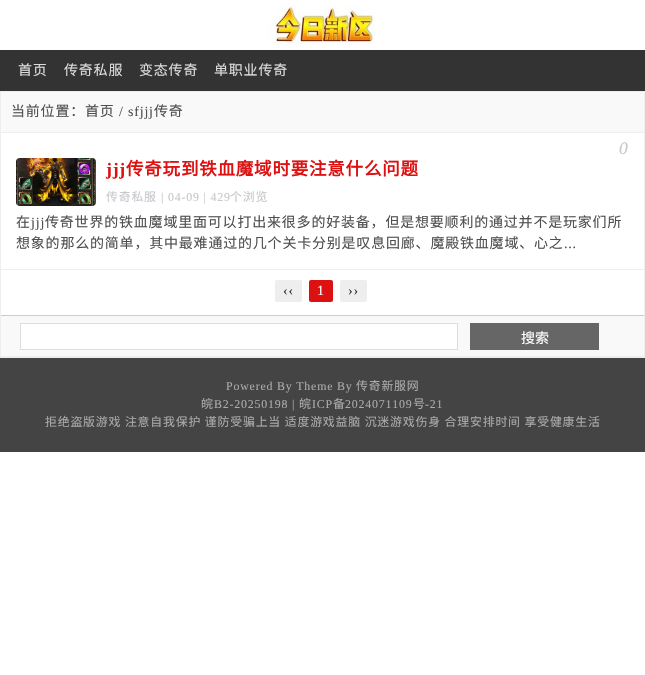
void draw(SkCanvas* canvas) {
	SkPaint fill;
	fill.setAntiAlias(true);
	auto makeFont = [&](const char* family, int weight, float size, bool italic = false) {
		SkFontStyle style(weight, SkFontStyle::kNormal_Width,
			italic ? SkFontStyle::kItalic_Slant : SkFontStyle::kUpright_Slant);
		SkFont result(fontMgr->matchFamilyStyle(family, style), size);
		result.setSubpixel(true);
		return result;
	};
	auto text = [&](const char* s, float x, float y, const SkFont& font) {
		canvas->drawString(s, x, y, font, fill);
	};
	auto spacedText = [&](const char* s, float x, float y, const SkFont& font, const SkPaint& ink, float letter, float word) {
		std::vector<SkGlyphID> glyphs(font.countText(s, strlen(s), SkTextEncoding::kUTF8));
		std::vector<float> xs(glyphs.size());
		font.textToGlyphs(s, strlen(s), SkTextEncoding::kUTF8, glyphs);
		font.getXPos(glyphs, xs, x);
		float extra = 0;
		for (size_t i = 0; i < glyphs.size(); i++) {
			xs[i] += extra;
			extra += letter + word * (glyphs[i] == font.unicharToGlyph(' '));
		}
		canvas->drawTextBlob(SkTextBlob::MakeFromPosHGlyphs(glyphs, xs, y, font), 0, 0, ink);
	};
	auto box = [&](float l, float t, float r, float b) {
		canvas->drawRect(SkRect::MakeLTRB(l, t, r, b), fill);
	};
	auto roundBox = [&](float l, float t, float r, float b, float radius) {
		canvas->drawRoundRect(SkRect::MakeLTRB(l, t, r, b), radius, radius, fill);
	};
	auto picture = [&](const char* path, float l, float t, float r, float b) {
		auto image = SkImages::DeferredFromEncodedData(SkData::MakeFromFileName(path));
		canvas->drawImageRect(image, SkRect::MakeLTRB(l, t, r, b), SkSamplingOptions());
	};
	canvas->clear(0xFFFFFFFF);
	picture("image0.png", 268, 5, 375, 45);
	fill.setColor(0xFF333333);
	box(0, 50, 645, 91);
	fill.setStyle(SkPaint::kStroke_Style);
	fill.setStrokeWidth(1);
	fill.setColor(0xFFEEEEEE);
	canvas->drawRect(SkRect::MakeLTRB(0.5f, 91.5f, 644.5f, 357.5f), fill);
	fill.setStyle(SkPaint::kFill_Style);
	fill.setColor(0xFFF9F9F9);
	box(1, 92, 644, 132);
	fill.setColor(0xFFEEEEEE);
	box(1, 132, 644, 133);
	box(1, 269, 644, 270);
	picture("image1.png", 16, 158, 96, 206);
	roundBox(275, 280, 302, 302, 2);
	fill.setColor(0xFFDD1111);
	roundBox(309, 280, 333, 302, 2);
	fill.setColor(0xFFEEEEEE);
	roundBox(340, 280, 367, 302, 2);
	fill.setColor(0xFFCCCCCC);
	box(1, 315, 644, 316);
	fill.setColor(0xFFF9F9F9);
	box(1, 316, 644, 356);
	fill.setColor(0xFFEEEEEE);
	box(1, 356, 644, 357);
	fill.setColor(0xFFFFFFFF);
	canvas->drawRect(SkRect::MakeLTRB(20.5f, 323.5f, 457.5f, 349.5f), fill);
	fill.setStyle(SkPaint::kStroke_Style);
	fill.setColor(0xFFDDDDDD);
	canvas->drawRect(SkRect::MakeLTRB(20.5f, 323.5f, 457.5f, 349.5f), fill);
	fill.setStyle(SkPaint::kFill_Style);
	fill.setColor(0xFF666666);
	box(470, 323, 599, 350);
	fill.setColor(0xFF444444);
	box(0, 358, 645, 452);
	auto font1 = makeFont("Noto Sans CJK SC", 400, 14);
	fill.setColor(0xFFDDDDDD);
	spacedText("首页", 18, 75, font1, fill, 0.8f, 0);
	spacedText("传奇私服", 64, 75, font1, fill, 0.8f, 0);
	spacedText("变态传奇", 139, 75, font1, fill, 0.8f, 0);
	spacedText("单职业传奇", 214, 75, font1, fill, 0.8f, 0);
	fill.setColor(0xFF4F4F4F);
	spacedText("当前位置：首页", 11, 116, font1, fill, 0.8f, 0);
	auto font2 = makeFont("Liberation Serif", 400, 14);
	spacedText("/ sfjjj", 119, 116, font2, fill, 0.8f, 0);
	spacedText("传奇", 154, 116, font1, fill, 0.8f, 0);
	auto font3 = makeFont("Liberation Serif", 400, 17.5f, true);
	fill.setColor(0xFFC8C7CC);
	spacedText("0", 619, 154, font3, fill, 0.8f, 0);
	auto font4 = makeFont("Liberation Serif", 700, 17.5f);
	fill.setColor(0xFFDD1111);
	spacedText("jjj", 106, 175, font4, fill, 0.8f, 0);
	auto font5 = makeFont("Noto Sans CJK SC", 700, 17.5f);
	spacedText("传奇玩到铁血魔域时要注意什么问题", 126, 175, font5, fill, 0.8f, 0);
	auto font6 = makeFont("Noto Sans CJK SC", 400, 11.9f);
	fill.setColor(0xFFC8C7CC);
	spacedText("传奇私服", 106, 201, font6, fill, 0.8f, 0);
	auto font7 = makeFont("Liberation Serif", 400, 11.9f);
	spacedText("| 04-09 | 429", 161, 201, font7, fill, 0.8f, 0);
	spacedText("个浏览", 230, 201, font6, fill, 0.8f, 0);
	fill.setColor(0xFF4F4F4F);
	spacedText("在", 16, 227, font1, fill, 0.8f, 0);
	spacedText("jjj", 31, 227, font2, fill, 0.8f, 0);
	spacedText("传奇世界的铁血魔域里面可以打出来很多的好装备，但是想要顺利的通过并不是玩家们所", 45, 227, font1, fill, 0.8f, 0);
	spacedText("想象的那么的简单，其中最难通过的几个关卡分别是叹息回廊、魔殿铁血魔域、心之", 16, 248, font1, fill, 0.8f, 0);
	spacedText("...", 564, 248, font2, fill, 0.8f, 0);
	fill.setColor(0xFF333333);
	spacedText("‹‹", 283, 295, font2, fill, 0.8f, 0);
	fill.setColor(0xFFFFFFFF);
	spacedText("1", 317, 295, font2, fill, 0.8f, 0);
	fill.setColor(0xFF333333);
	spacedText("››", 348, 295, font2, fill, 0.8f, 0);
	fill.setColor(0xFFFFFFFF);
	text("搜索", 521, 343, font1);
	fill.setColor(0xFFAAAAAA);
	spacedText("Powered By Theme By", 226, 390, font7, fill, 0.8f, 0);
	spacedText("传奇新服网", 356, 390, font6, fill, 0.8f, 0);
	spacedText("皖", 201, 408, font6, fill, 0.8f, 0);
	spacedText("B2-20250198 |", 214, 408, font7, fill, 0.8f, 0);
	spacedText("皖", 299, 408, font6, fill, 0.8f, 0);
	spacedText("ICP", 312, 408, font7, fill, 0.8f, 0);
	spacedText("备", 333, 408, font6, fill, 0.8f, 0);
	spacedText("2024071109", 345, 408, font7, fill, 0.8f, 0);
	spacedText("号", 413, 408, font6, fill, 0.8f, 0);
	spacedText("-21", 425, 408, font7, fill, 0.8f, 0);
	spacedText("拒绝盗版游戏 注意自我保护 谨防受骗上当 适度游戏益脑 沉迷游戏伤身 合理安排时间 享受健康生活", 45, 426, font6, fill, 0.8f, 0.25f);
}
